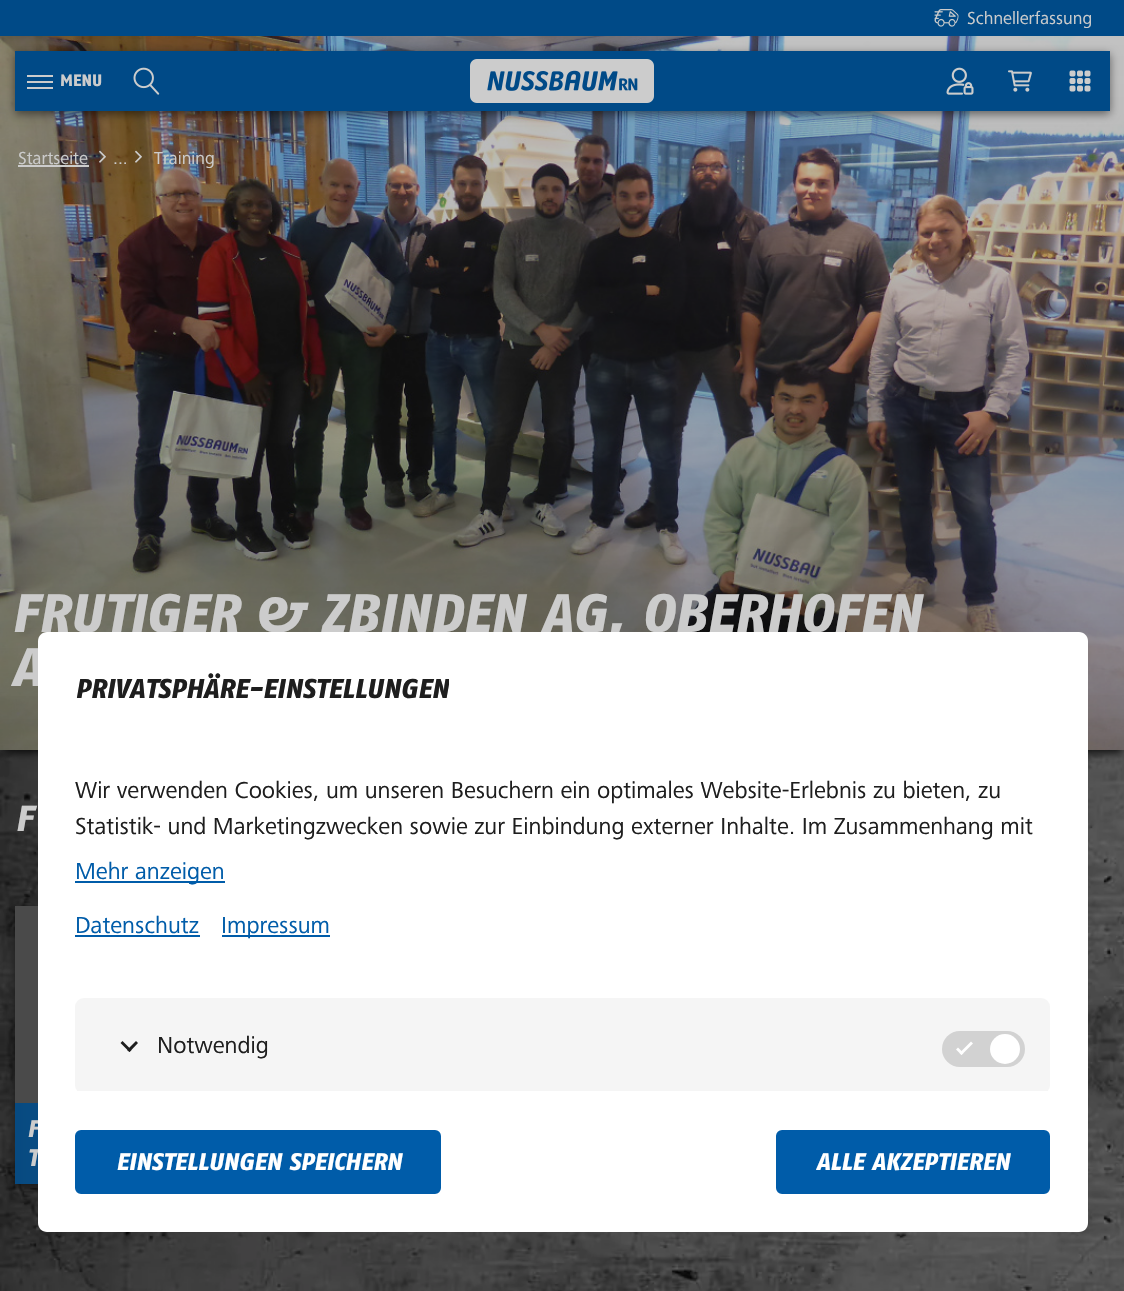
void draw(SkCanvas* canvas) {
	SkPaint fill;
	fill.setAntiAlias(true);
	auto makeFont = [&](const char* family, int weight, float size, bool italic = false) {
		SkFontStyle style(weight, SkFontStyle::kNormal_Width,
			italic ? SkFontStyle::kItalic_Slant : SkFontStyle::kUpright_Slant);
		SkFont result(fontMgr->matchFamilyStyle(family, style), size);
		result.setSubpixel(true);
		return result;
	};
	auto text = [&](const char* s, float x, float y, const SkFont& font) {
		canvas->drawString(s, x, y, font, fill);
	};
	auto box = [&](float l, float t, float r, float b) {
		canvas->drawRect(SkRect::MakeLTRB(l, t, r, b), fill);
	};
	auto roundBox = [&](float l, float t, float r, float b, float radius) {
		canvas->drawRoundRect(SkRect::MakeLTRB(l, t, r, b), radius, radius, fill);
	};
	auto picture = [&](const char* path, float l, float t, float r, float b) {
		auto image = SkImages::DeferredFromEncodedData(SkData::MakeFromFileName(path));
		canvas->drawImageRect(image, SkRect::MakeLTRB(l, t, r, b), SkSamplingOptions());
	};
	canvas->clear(0xFFFFFFFF);
	picture("image0.png", 0, 750, 1124, 1291);
	fill.setColor(0xCC000000);
	fill.setMaskFilter(SkMaskFilter::MakeBlur(kNormal_SkBlurStyle, 4));
	canvas->drawRect(SkRect::MakeLTRB(3, 9, 1122, 753), fill);
	fill.setMaskFilter(nullptr);
	fill.setColor(0xFF004A87);
	box(0, 0, 1124, 36);
	picture("image1.png", 934, 9, 959, 27);
	picture("image7.png", 0, 36, 1124, 750);
	fill.setColor(0x80000000);
	fill.setMaskFilter(SkMaskFilter::MakeBlur(kNormal_SkBlurStyle, 4.5f));
	canvas->drawRect(SkRect::MakeLTRB(15, 54, 1110, 114), fill);
	fill.setMaskFilter(nullptr);
	fill.setColor(0xFF004A87);
	box(15, 51, 1110, 111);
	fill.setColor(0xFFCCCCCC);
	box(27, 75, 53, 77);
	box(27, 81, 53, 83);
	box(27, 87, 53, 89);
	picture("image2.png", 133, 67, 160, 95);
	picture("image3.png", 946, 67, 974, 95);
	picture("image4.png", 1008, 70, 1032, 92);
	picture("image5.png", 1069, 70, 1091, 92);
	picture("image6.png", 470, 59, 654, 103);
	box(18, 165, 89, 167);
	picture("image8.png", 99, 150, 106, 163);
	picture("image9.png", 135, 150, 142, 163);
	fill.setColor(0x80000000);
	fill.setMaskFilter(SkMaskFilter::MakeBlur(kNormal_SkBlurStyle, 4.5f));
	canvas->drawRect(SkRect::MakeLTRB(15, 909, 548, 1187), fill);
	fill.setMaskFilter(nullptr);
	fill.setColor(0xFF4A4A4A);
	box(15, 906, 38, 1103);
	{
		const SkColor colors[] = {0xFF074A81, 0xFF356D9A};
		const float stops[] = {0, 1};
		const SkPoint ends[] = {{15, 1143}, {548, 1143}};
		fill.setShader(SkGradientShader::MakeLinear(ends, colors, stops, 2, SkTileMode::kClamp));
		fill.setAlpha(255);
	}
	box(15, 1103, 38, 1184);
	canvas->save();
	canvas->clipPath(SkPathBuilder().moveTo(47, 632).lineTo(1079, 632).cubicTo(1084, 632, 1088, 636, 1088, 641).lineTo(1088, 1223).cubicTo(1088, 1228, 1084, 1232, 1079, 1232).lineTo(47, 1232).cubicTo(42, 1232, 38, 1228, 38, 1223).lineTo(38, 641).cubicTo(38, 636, 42, 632, 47, 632).close().detach(), true);
	fill.setShader(nullptr);
	fill.setColor(0x1A000000);
	fill.setMaskFilter(SkMaskFilter::MakeBlur(kNormal_SkBlurStyle, 5));
	canvas->drawRect(SkRect::MakeLTRB(38, 636, 1088, 753), fill);
	fill.setMaskFilter(nullptr);
	fill.setMaskFilter(SkMaskFilter::MakeBlur(kNormal_SkBlurStyle, 5));
	canvas->drawRect(SkRect::MakeLTRB(38, 1095, 1088, 1236), fill);
	fill.setMaskFilter(nullptr);
	canvas->restore();
	fill.setColor(0xFFFFFFFF);
	box(38, 749, 1088, 1091);
	fill.setColor(0xFF005CA9);
	box(75, 881, 225, 883);
	box(75, 935, 200, 937);
	box(222, 935, 330, 937);
	auto font1 = makeFont("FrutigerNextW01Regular", 400, 18);
	fill.setColor(0xFFCCCCCC);
	text("Schnellerfassung", 967, 24, font1);
	auto font2 = makeFont("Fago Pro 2", 700, 16.5f);
	text("MENU", 60, 86, font2);
	text("Startseite", 18, 164, font1);
	text("...", 113, 164, font1);
	text("Training", 154, 164, font1);
	auto font3 = makeFont("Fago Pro", 700, 54);
	text("FRUTIGER & ZBINDEN AG, OBERHOFEN", 11, 632, font3);
	text("A", 11, 686, font3);
	auto font4 = makeFont("Fago Pro", 700, 36);
	text("F", 15, 831, font4);
	auto font5 = makeFont("Fago Pro", 700, 24);
	text("F", 27, 1137, font5);
	text("T", 27, 1166, font5);
	fill.setColor(0xFFFFFFFF);
	canvas->drawPath(SkPathBuilder().moveTo(47, 632).lineTo(1079, 632).cubicTo(1084, 632, 1088, 636, 1088, 641).lineTo(1088, 749).lineTo(38, 749).lineTo(38, 641).cubicTo(38, 636, 42, 632, 47, 632).close().detach(), fill);
	canvas->save();
	canvas->clipRect(SkRect::MakeLTRB(75, 669, 449, 710));
	auto font6 = makeFont("Fago Pro", 700, 27);
	fill.setColor(0xFF1E1E1E);
	text("PRIVATSPHÄRE-EINSTELLUNGEN", 75, 698, font6);
	canvas->restore();
	auto font7 = makeFont("FrutigerNextW01Regular", 400, 24);
	text("Wir verwenden Cookies, um unseren Besuchern ein optimales Website-Erlebnis zu bieten, zu", 75, 798, font7);
	text("Statistik- und Marketingzwecken sowie zur Einbindung externer Inhalte. Im Zusammenhang mit", 75, 834, font7);
	fill.setColor(0xFF005CA9);
	text("Mehr anzeigen", 75, 879, font7);
	text("Datenschutz", 75, 933, font7);
	text("Impressum", 221, 933, font7);
	fill.setColor(0xFFFFFFFF);
	canvas->drawPath(SkPathBuilder().moveTo(38, 1091).lineTo(1088, 1091).lineTo(1088, 1223).cubicTo(1088, 1228, 1084, 1232, 1079, 1232).lineTo(47, 1232).cubicTo(42, 1232, 38, 1228, 38, 1223).close().detach(), fill);
	canvas->save();
	canvas->clipRect(SkRect::MakeLTRB(38, 711, 1088, 1091));
	fill.setColor(0xFFF5F5F5);
	roundBox(75, 998, 1050, 1094, 9);
	canvas->restore();
	fill.setColor(0xFFD2D2D2);
	roundBox(942, 1031, 1025, 1067, 18);
	fill.setColor(0xFFFFFFFF);
	canvas->drawCircle(1005, 1049, 15, fill);
	canvas->drawPath(SkPathBuilder().moveTo(971, 1041.5f).lineTo(973, 1043.5f).lineTo(961.5f, 1055).lineTo(959.5f, 1053).close().detach(), fill);
	canvas->drawPath(SkPathBuilder().moveTo(958, 1047.5f).lineTo(963.5f, 1053).lineTo(961.5f, 1055).lineTo(956, 1049.5f).close().detach(), fill);
	fill.setColor(0xFF1E1E1E);
	canvas->drawPath(SkPathBuilder().moveTo(136, 1041).lineTo(138, 1043).lineTo(129.5f, 1052).lineTo(127, 1050).close().detach(), fill);
	canvas->drawPath(SkPathBuilder().moveTo(122.5f, 1041).lineTo(131.5f, 1050).lineTo(129.5f, 1052).lineTo(120.5f, 1043).close().detach(), fill);
	text("Notwendig", 157, 1053, font7);
	fill.setColor(0xFF005CA9);
	canvas->drawRoundRect(SkRect::MakeLTRB(76, 1131, 440, 1193), 5, 5, fill);
	fill.setStyle(SkPaint::kStroke_Style);
	fill.setStrokeWidth(2);
	canvas->drawRoundRect(SkRect::MakeLTRB(76, 1131, 440, 1193), 5, 5, fill);
	fill.setStyle(SkPaint::kFill_Style);
	fill.setColor(0xFFFFFFFF);
	text("EINSTELLUNGEN SPEICHERN", 116, 1170, font5);
	fill.setColor(0xFF005CA9);
	canvas->drawRoundRect(SkRect::MakeLTRB(777, 1131, 1049, 1193), 5, 5, fill);
	fill.setStyle(SkPaint::kStroke_Style);
	canvas->drawRoundRect(SkRect::MakeLTRB(777, 1131, 1049, 1193), 5, 5, fill);
	fill.setStyle(SkPaint::kFill_Style);
	fill.setColor(0xFFFFFFFF);
	text("ALLE AKZEPTIEREN", 816, 1170, font5);
}
